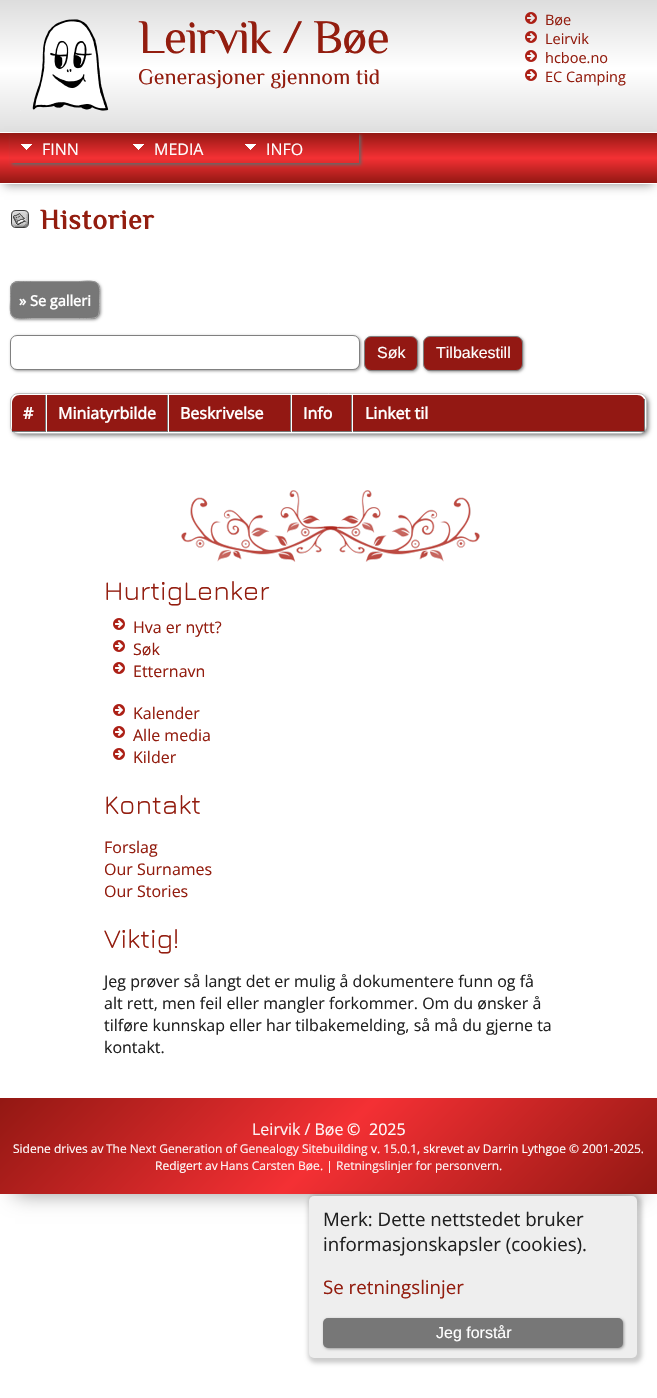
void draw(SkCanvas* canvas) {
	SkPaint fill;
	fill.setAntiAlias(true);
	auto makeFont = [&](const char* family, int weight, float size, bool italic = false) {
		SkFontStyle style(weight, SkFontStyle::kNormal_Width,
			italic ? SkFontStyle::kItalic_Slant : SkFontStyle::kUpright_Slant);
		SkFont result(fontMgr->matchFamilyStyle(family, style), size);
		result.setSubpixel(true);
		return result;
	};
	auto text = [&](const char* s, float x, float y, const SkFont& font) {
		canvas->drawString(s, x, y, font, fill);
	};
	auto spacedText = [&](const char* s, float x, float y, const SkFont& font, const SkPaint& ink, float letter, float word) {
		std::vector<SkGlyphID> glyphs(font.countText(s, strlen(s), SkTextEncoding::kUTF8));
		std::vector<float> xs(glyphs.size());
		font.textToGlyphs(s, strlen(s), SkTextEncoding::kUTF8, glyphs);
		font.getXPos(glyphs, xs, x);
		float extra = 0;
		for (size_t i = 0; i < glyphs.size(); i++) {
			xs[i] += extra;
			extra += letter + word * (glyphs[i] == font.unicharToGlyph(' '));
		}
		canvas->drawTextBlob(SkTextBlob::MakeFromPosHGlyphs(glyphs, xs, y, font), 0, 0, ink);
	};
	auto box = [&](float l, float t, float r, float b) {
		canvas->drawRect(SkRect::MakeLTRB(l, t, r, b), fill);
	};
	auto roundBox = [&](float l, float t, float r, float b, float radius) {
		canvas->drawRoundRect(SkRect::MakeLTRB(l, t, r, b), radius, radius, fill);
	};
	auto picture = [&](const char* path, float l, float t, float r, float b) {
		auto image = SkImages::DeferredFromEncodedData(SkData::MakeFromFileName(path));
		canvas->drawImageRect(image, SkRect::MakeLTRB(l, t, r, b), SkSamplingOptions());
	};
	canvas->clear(0xFFFFFFFF);
	{
		const SkColor colors[] = {0xFFDDDDDD, 0xFFFFFFFF, 0xFFDDDDDD};
		const float stops[] = {0, 0.5f, 1};
		const SkPoint ends[] = {{329, 0}, {329, 137}};
		fill.setShader(SkGradientShader::MakeLinear(ends, colors, stops, 3, SkTileMode::kClamp));
		fill.setAlpha(255);
	}
	box(0, 0, 657, 132);
	picture("image0.png", 20, 19, 109, 111);
	picture("image1.png", 525, 12, 537, 24);
	picture("image2.png", 525, 31, 537, 43);
	picture("image3.png", 525, 50, 537, 62);
	picture("image4.png", 525, 69, 537, 81);
	fill.setShader(nullptr);
	fill.setColor(0x66000000);
	fill.setMaskFilter(SkMaskFilter::MakeBlur(kNormal_SkBlurStyle, 5));
	canvas->drawRect(SkRect::MakeLTRB(4, 141, 653, 185), fill);
	fill.setMaskFilter(nullptr);
	{
		const SkColor colors[] = {0xFF931813, 0xFFF43034, 0xFF931813};
		const float stops[] = {0, 0.5f, 1};
		const SkPoint ends[] = {{329, 133}, {329, 183}};
		fill.setShader(SkGradientShader::MakeLinear(ends, colors, stops, 3, SkTileMode::kClamp));
		fill.setAlpha(255);
	}
	box(0, 133, 657, 183);
	fill.setShader(nullptr);
	fill.setColor(0xFFFFFFFF);
	box(0, 132, 657, 133);
	box(0, 183, 657, 184);
	canvas->save();
	canvas->clipPath(SkPathBuilder(SkPathFillType::kEvenOdd).moveTo(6, 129).lineTo(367, 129).lineTo(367, 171).lineTo(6, 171).close().moveTo(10, 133).lineTo(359, 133).lineTo(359, 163).lineTo(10, 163).close().detach(), true);
	fill.setColor(0xFF666666);
	fill.setMaskFilter(SkMaskFilter::MakeBlur(kNormal_SkBlurStyle, 1.5f));
	canvas->drawRect(SkRect::MakeLTRB(12, 135, 361, 165), fill);
	fill.setMaskFilter(nullptr);
	canvas->restore();
	picture("image5.png", 21, 144, 32, 150);
	picture("image5.png", 133, 144, 144, 150);
	picture("image5.png", 245, 144, 256, 150);
	picture("image6.png", 11, 210, 29, 228);
	fill.setColor(0xFF999999);
	fill.setMaskFilter(SkMaskFilter::MakeBlur(kNormal_SkBlurStyle, 1.5f));
	canvas->drawRoundRect(SkRect::MakeLTRB(11, 282, 101, 320), 8, 8, fill);
	fill.setMaskFilter(nullptr);
	fill.setColor(0xFF777777);
	roundBox(10, 281, 100, 319, 8);
	fill.setStyle(SkPaint::kStroke_Style);
	fill.setStrokeWidth(1);
	fill.setColor(0xFFAAAAAA);
	canvas->drawPath(SkPathBuilder().moveTo(97.5f, 283.5f).cubicTo(101, 287.5f, 99.5f, 295.5f, 99.5f, 300).cubicTo(99.5f, 319.5f, 100, 318.5f, 79.5f, 318.5f).lineTo(30.5f, 318.5f).cubicTo(26.5f, 318.5f, 17, 320.5f, 12.5f, 316.5f).detach(), fill);
	fill.setColor(0xFF999999);
	canvas->drawPath(SkPathBuilder().moveTo(12.5f, 316.5f).cubicTo(9, 312.5f, 10.5f, 304.5f, 10.5f, 300).cubicTo(10.5f, 280.5f, 10, 281.5f, 30.5f, 281.5f).lineTo(79.5f, 281.5f).cubicTo(83.5f, 281.5f, 93, 279.5f, 97.5f, 283.5f).detach(), fill);
	fill.setStyle(SkPaint::kFill_Style);
	fill.setMaskFilter(SkMaskFilter::MakeBlur(kNormal_SkBlurStyle, 1.5f));
	canvas->drawRoundRect(SkRect::MakeLTRB(11, 336, 361, 371), 7, 7, fill);
	fill.setMaskFilter(nullptr);
	fill.setColor(0xFFFFFFFF);
	canvas->drawRoundRect(SkRect::MakeLTRB(10.5f, 335.5f, 359.5f, 369.5f), 6.5f, 6.5f, fill);
	fill.setStyle(SkPaint::kStroke_Style);
	fill.setColor(0xFF808080);
	canvas->drawRoundRect(SkRect::MakeLTRB(10.5f, 335.5f, 359.5f, 369.5f), 6.5f, 6.5f, fill);
	fill.setStyle(SkPaint::kFill_Style);
	fill.setColor(0xFF999999);
	fill.setMaskFilter(SkMaskFilter::MakeBlur(kNormal_SkBlurStyle, 1.5f));
	canvas->drawRoundRect(SkRect::MakeLTRB(365, 337, 419, 372), 7, 7, fill);
	fill.setMaskFilter(nullptr);
	fill.setColor(0xFF931813);
	canvas->drawRoundRect(SkRect::MakeLTRB(364.5f, 336.5f, 417.5f, 370.5f), 6.5f, 6.5f, fill);
	fill.setStyle(SkPaint::kStroke_Style);
	fill.setColor(0xFF808080);
	canvas->drawRoundRect(SkRect::MakeLTRB(364.5f, 336.5f, 417.5f, 370.5f), 6.5f, 6.5f, fill);
	fill.setStyle(SkPaint::kFill_Style);
	fill.setColor(0xFF999999);
	fill.setMaskFilter(SkMaskFilter::MakeBlur(kNormal_SkBlurStyle, 1.5f));
	canvas->drawRoundRect(SkRect::MakeLTRB(424, 337, 524, 372), 7, 7, fill);
	fill.setMaskFilter(nullptr);
	fill.setColor(0xFF931813);
	canvas->drawRoundRect(SkRect::MakeLTRB(423.5f, 336.5f, 522.5f, 370.5f), 6.5f, 6.5f, fill);
	fill.setStyle(SkPaint::kStroke_Style);
	fill.setColor(0xFF808080);
	canvas->drawRoundRect(SkRect::MakeLTRB(423.5f, 336.5f, 522.5f, 370.5f), 6.5f, 6.5f, fill);
	fill.setStyle(SkPaint::kFill_Style);
	fill.setColor(0xFF666666);
	fill.setMaskFilter(SkMaskFilter::MakeBlur(kNormal_SkBlurStyle, 2.5f));
	canvas->drawRoundRect(SkRect::MakeLTRB(13, 396, 648, 435), 7, 7, fill);
	fill.setMaskFilter(nullptr);
	fill.setColor(0xFFFFFFFF);
	canvas->drawRoundRect(SkRect::MakeLTRB(10.5f, 393.5f, 646.5f, 433.5f), 7.5f, 7.5f, fill);
	fill.setStyle(SkPaint::kStroke_Style);
	fill.setColor(0xFFC0C0C0);
	canvas->drawRoundRect(SkRect::MakeLTRB(10.5f, 393.5f, 646.5f, 433.5f), 7.5f, 7.5f, fill);
	fill.setStyle(SkPaint::kFill_Style);
	fill.setColor(0xFF931813);
	canvas->drawPath(SkPathBuilder().moveTo(20, 395).lineTo(46, 395).lineTo(46, 432).lineTo(12, 432).lineTo(12, 403).cubicTo(12, 398.5f, 15.5f, 395, 20, 395).close().detach(), fill);
	fill.setColor(0xFF777777);
	box(45, 395, 46, 432);
	box(12, 431, 46, 432);
	fill.setColor(0xFF931813);
	box(47, 395, 167, 431);
	fill.setColor(0xFF777777);
	box(167, 395, 168, 432);
	box(47, 431, 168, 432);
	fill.setColor(0xFF931813);
	box(169, 395, 290, 431);
	fill.setColor(0xFF777777);
	box(290, 395, 291, 432);
	box(169, 431, 291, 432);
	fill.setColor(0xFF931813);
	box(292, 395, 351, 431);
	fill.setColor(0xFF777777);
	box(351, 395, 352, 432);
	box(292, 431, 352, 432);
	fill.setColor(0xFF931813);
	canvas->drawPath(SkPathBuilder().moveTo(353, 395).lineTo(637, 395).cubicTo(641.5f, 395, 645, 398.5f, 645, 403).lineTo(645, 432).lineTo(353, 432).close().detach(), fill);
	fill.setColor(0xFF777777);
	box(644, 399, 645, 432);
	box(353, 431, 645, 432);
	picture("image7.png", 181, 490, 480, 562);
	picture("image8.png", 113, 618, 125, 630);
	picture("image8.png", 113, 640, 125, 652);
	picture("image8.png", 113, 662, 125, 674);
	picture("image8.png", 113, 704, 125, 716);
	picture("image8.png", 113, 726, 125, 738);
	picture("image8.png", 113, 748, 125, 760);
	fill.setColor(0x66000000);
	fill.setMaskFilter(SkMaskFilter::MakeBlur(kNormal_SkBlurStyle, 10));
	canvas->drawRect(SkRect::MakeLTRB(15, 1128, 642, 1194), fill);
	fill.setMaskFilter(nullptr);
	{
		const SkColor colors[] = {0xFF931813, 0xFFF43034, 0xFF931813};
		const float stops[] = {0, 0.5f, 1};
		const SkPoint ends[] = {{140, 958}, {517, 1334}};
		fill.setShader(SkGradientShader::MakeLinear(ends, colors, stops, 3, SkTileMode::kClamp));
		fill.setAlpha(255);
	}
	box(0, 1098, 657, 1194);
	fill.setShader(nullptr);
	fill.setColor(0x33000000);
	fill.setMaskFilter(SkMaskFilter::MakeBlur(kNormal_SkBlurStyle, 2));
	canvas->drawRoundRect(SkRect::MakeLTRB(308, 1195, 642, 1363), 8, 8, fill);
	fill.setMaskFilter(nullptr);
	fill.setColor(0xFFEEEEEE);
	roundBox(309, 1196, 637, 1358, 5);
	fill.setColor(0xFF999999);
	fill.setMaskFilter(SkMaskFilter::MakeBlur(kNormal_SkBlurStyle, 1.5f));
	canvas->drawRoundRect(SkRect::MakeLTRB(324, 1319, 624, 1349), 5, 5, fill);
	fill.setMaskFilter(nullptr);
	fill.setColor(0xFF777777);
	roundBox(323, 1318, 623, 1348, 5);
	auto font1 = makeFont("Philosopher", 400, 48);
	fill.setColor(0xFF931D0F);
	spacedText("Leirvik / Bøe", 138, 53, font1, fill, -1, 0);
	auto font2 = makeFont("Philosopher", 400, 22);
	text("Generasjoner gjennom tid", 138, 84, font2);
	auto font3 = makeFont("Open Sans", 400, 14.5f);
	text("Bøe", 545, 25, font3);
	text("Leirvik", 545, 44, font3);
	text("hcboe.no", 545, 63, font3);
	text("EC Camping", 545, 82, font3);
	auto font4 = makeFont("Open Sans", 400, 16);
	fill.setColor(0xFFFFFFFF);
	text("FINN", 42, 155, font4);
	text("MEDIA", 154, 155, font4);
	text("INFO", 266, 155, font4);
	auto font5 = makeFont("Philosopher", 700, 28);
	fill.setColor(0xFF931D0F);
	spacedText("Historier", 40, 229, font5, fill, 1, 0);
	auto font6 = makeFont("Open Sans", 700, 14.5f);
	fill.setColor(0xFFFFFFFF);
	text("» Se galleri", 19, 306, font6);
	auto font7 = makeFont("Liberation Sans", 400, 16);
	text("Søk", 377, 358, font7);
	text("Tilbakestill", 436, 358, font7);
	auto font8 = makeFont("Open Sans", 700, 16);
	text("#", 23, 419, font8);
	text("Miniatyrbilde", 58, 419, font8);
	text("Beskrivelse", 180, 419, font8);
	text("Info", 303, 419, font8);
	text("Linket til", 365, 419, font8);
	auto font9 = makeFont("Jura", 300, 27.25f);
	fill.setColor(0xFF931D0F);
	text("HurtigLenker", 104, 600, font9);
	text("Hva er nytt?", 133, 633, font4);
	text("Søk", 133, 655, font4);
	text("Etternavn", 133, 677, font4);
	text("Kalender", 133, 719, font4);
	text("Alle media", 133, 741, font4);
	text("Kilder", 133, 763, font4);
	text("Kontakt", 104, 814, font9);
	text("Forslag", 104, 853, font4);
	text("Our Surnames", 104, 875, font4);
	text("Our Stories", 104, 897, font4);
	text("Viktig!", 104, 948, font9);
	fill.setColor(0xFF202020);
	text("Jeg prøver så langt det er mulig å dokumentere funn og få", 104, 987, font4);
	text("alt rett, men feil eller mangler forkommer. Om du ønsker å", 104, 1009, font4);
	text("tilføre kunnskap eller har tilbakemelding, så må du gjerne ta", 104, 1031, font4);
	text("kontakt.", 104, 1053, font4);
	auto font10 = makeFont("Open Sans", 400, 18.7f);
	text("Merk: Dette nettstedet bruker", 323, 1226, font10);
	text("informasjonskapsler (cookies).", 323, 1251, font10);
	fill.setColor(0xFF931D0F);
	text("Se retningslinjer", 323, 1294, font10);
	fill.setColor(0xFFFFFFFF);
	text("Jeg forstår", 436, 1338, font7);
	fill.setColor(0xFFFEF4F5);
	text("Leirvik / Bøe", 252, 1135, font4);
	fill.setColor(0xFFFFFFFF);
	text("©", 347, 1135, font4);
	text("2025", 369, 1135, font4);
	auto font11 = makeFont("Open Sans", 400, 12);
	text("Sidene drives av", 13, 1153, font11);
	fill.setColor(0xFFFEF4F5);
	text("The Next Generation of Genealogy Sitebuilding", 106, 1153, font11);
	fill.setColor(0xFFFFFFFF);
	text("v. 15.0.1, skrevet av Darrin Lythgoe © 2001-2025.", 371, 1153, font11);
	text("Redigert av", 155, 1170, font11);
	fill.setColor(0xFFFEF4F5);
	text("Hans Carsten Bøe", 220, 1170, font11);
	fill.setColor(0xFFFFFFFF);
	text(". |", 320, 1170, font11);
	fill.setColor(0xFFFEF4F5);
	text("Retningslinjer for personvern", 336, 1170, font11);
	fill.setColor(0xFFFFFFFF);
	text(".", 499, 1170, font11);
}
